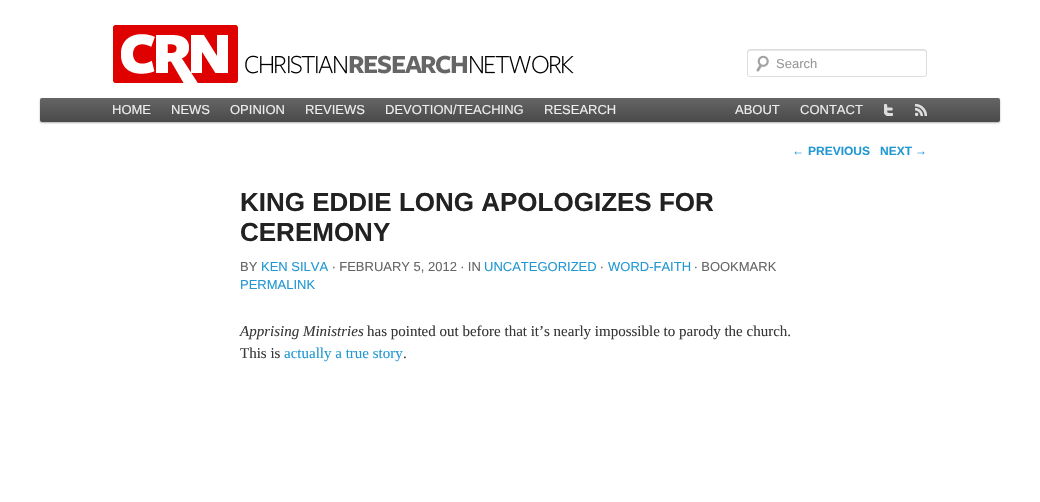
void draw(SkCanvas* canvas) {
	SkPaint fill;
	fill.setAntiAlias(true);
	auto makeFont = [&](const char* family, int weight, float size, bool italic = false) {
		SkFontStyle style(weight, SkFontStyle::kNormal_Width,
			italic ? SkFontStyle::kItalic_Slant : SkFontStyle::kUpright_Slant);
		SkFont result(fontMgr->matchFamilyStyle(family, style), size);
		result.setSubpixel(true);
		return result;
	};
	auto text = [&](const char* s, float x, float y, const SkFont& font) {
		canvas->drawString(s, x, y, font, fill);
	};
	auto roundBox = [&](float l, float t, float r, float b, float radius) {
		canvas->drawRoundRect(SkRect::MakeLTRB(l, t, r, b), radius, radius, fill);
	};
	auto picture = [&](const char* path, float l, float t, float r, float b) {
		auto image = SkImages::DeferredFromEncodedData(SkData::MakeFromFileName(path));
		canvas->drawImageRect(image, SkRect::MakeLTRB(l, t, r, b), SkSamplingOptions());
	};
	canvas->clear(0xFFFFFFFF);
	picture("image0.png", 113, 25, 574, 83);
	picture("image1.png", 756, 55, 769, 72);
	fill.setColor(0xFFE6E6E6);
	canvas->drawPath(SkPathBuilder().moveTo(750, 51).lineTo(924, 51).cubicTo(925, 51, 926, 52, 926, 53).cubicTo(926, 52, 926, 50, 924, 50).lineTo(749, 50).cubicTo(748, 51, 748, 52, 748, 53).cubicTo(748, 52, 749, 51, 750, 51).close().detach(), fill);
	fill.setStyle(SkPaint::kStroke_Style);
	fill.setStrokeWidth(1);
	fill.setColor(0xFFDDDDDD);
	canvas->drawRoundRect(SkRect::MakeLTRB(747.5f, 49.5f, 926.5f, 76.5f), 2.5f, 2.5f, fill);
	fill.setStyle(SkPaint::kFill_Style);
	fill.setColor(0x4D000000);
	fill.setMaskFilter(SkMaskFilter::MakeBlur(kNormal_SkBlurStyle, 1));
	canvas->drawRoundRect(SkRect::MakeLTRB(40, 99, 1000, 123), 2, 2, fill);
	fill.setMaskFilter(nullptr);
	{
		const SkColor colors[] = {0xFF656565, 0xFF4A4A4A};
		const float stops[] = {0, 1};
		const SkPoint ends[] = {{520, 98}, {520, 122}};
		fill.setShader(SkGradientShader::MakeLinear(ends, colors, stops, 2, SkTileMode::kClamp));
		fill.setAlpha(255);
	}
	roundBox(40, 98, 1000, 122, 2);
	picture("image2.png", 884, 104, 893, 116);
	picture("image3.png", 915, 104, 927, 116);
	auto font1 = makeFont("Liberation Sans", 400, 13);
	fill.setShader(nullptr);
	fill.setColor(0xFF999999);
	text("Search", 776, 68, font1);
	fill.setColor(0xFFEEEEEE);
	text("HOME", 112, 114, font1);
	text("NEWS", 171, 114, font1);
	text("OPINION", 230, 114, font1);
	text("REVIEWS", 305, 114, font1);
	text("DEVOTION/TEACHING", 385, 114, font1);
	text("RESEARCH", 544, 114, font1);
	text("ABOUT", 735, 114, font1);
	text("CONTACT", 800, 114, font1);
	auto font2 = makeFont("Liberation Sans", 400, 12);
	fill.setColor(0xFF2198D4);
	text("←", 792, 155, font2);
	auto font3 = makeFont("Liberation Sans", 700, 12);
	text("PREVIOUS", 808, 155, font3);
	text("NEXT", 880, 155, font3);
	text("→", 915, 155, font2);
	auto font4 = makeFont("Liberation Sans", 700, 26);
	fill.setColor(0xFF222222);
	text("KING EDDIE LONG APOLOGIZES FOR", 240, 211, font4);
	text("CEREMONY", 240, 241, font4);
	fill.setColor(0xFF666666);
	text("BY", 240, 271, font1);
	fill.setColor(0xFF2198D4);
	text("KEN SILVA", 261, 271, font1);
	fill.setColor(0xFF666666);
	text("∙ FEBRUARY 5, 2012 ∙ IN", 332, 271, font1);
	fill.setColor(0xFF2198D4);
	text("UNCATEGORIZED", 484, 271, font1);
	fill.setColor(0xFF666666);
	text("∙", 600, 271, font1);
	fill.setColor(0xFF2198D4);
	text("WORD-FAITH", 608, 271, font1);
	fill.setColor(0xFF666666);
	text("∙ BOOKMARK", 694, 271, font1);
	fill.setColor(0xFF2198D4);
	text("PERMALINK", 240, 289, font1);
	auto font5 = makeFont("Liberation Serif", 400, 15, true);
	fill.setColor(0xFF373737);
	text("Apprising Ministries", 240, 336, font5);
	auto font6 = makeFont("Liberation Serif", 400, 15);
	text("has pointed out before that it’s nearly impossible to parody the church.", 367, 336, font6);
	text("This is", 240, 358, font6);
	fill.setColor(0xFF2198D4);
	text("actually a true story", 284, 358, font6);
	fill.setColor(0xFF373737);
	text(".", 403, 358, font6);
}
